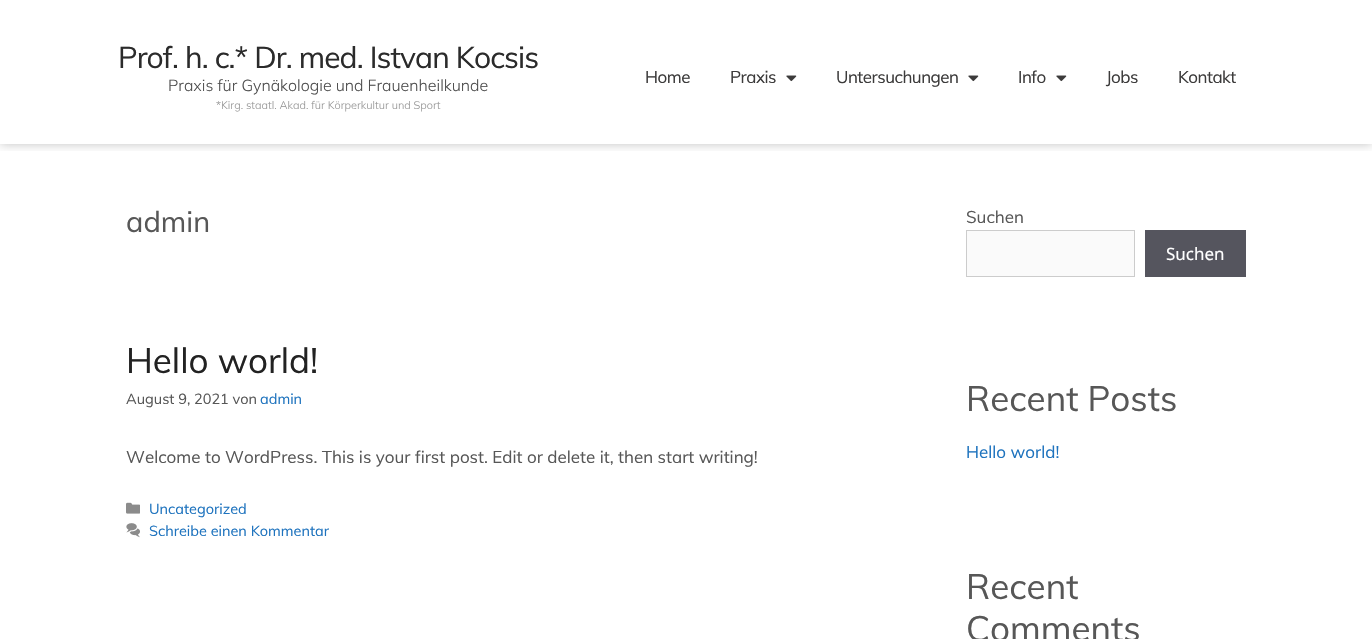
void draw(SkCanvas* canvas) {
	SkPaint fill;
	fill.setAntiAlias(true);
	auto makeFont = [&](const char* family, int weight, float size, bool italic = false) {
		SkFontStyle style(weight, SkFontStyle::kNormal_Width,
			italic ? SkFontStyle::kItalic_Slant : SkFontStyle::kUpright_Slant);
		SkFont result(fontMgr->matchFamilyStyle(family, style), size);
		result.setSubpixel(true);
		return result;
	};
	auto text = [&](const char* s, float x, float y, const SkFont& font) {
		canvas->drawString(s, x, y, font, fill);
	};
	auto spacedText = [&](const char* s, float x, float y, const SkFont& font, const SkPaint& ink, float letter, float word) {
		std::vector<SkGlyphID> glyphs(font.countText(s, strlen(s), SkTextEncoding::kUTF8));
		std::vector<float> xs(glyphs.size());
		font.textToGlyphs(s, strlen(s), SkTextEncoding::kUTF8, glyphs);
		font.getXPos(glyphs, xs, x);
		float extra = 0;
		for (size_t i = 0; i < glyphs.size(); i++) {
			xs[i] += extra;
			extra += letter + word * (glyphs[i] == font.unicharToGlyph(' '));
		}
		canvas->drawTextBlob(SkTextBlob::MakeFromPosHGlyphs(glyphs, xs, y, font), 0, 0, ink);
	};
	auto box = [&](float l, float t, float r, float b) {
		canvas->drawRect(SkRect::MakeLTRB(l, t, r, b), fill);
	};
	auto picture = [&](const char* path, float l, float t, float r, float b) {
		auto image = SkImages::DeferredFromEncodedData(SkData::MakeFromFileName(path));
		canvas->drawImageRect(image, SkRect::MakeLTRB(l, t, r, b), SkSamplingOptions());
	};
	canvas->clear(0xFFFFFFFF);
	canvas->save();
	canvas->clipRect(SkRect::MakeLTRB(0, 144, 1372, 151));
	fill.setColor(0x3D000000);
	fill.setMaskFilter(SkMaskFilter::MakeBlur(kNormal_SkBlurStyle, 5));
	canvas->drawRect(SkRect::MakeLTRB(0, 0, 1372, 144), fill);
	fill.setMaskFilter(nullptr);
	canvas->restore();
	picture("image0.png", 786, 75, 797, 82);
	picture("image0.png", 968, 75, 979, 82);
	picture("image0.png", 1056, 75, 1067, 82);
	picture("image1.png", 126, 502, 140, 514);
	picture("image2.png", 126, 523, 140, 538);
	fill.setColor(0xFFFAFAFA);
	canvas->drawRect(SkRect::MakeLTRB(966.5f, 230.5f, 1134.5f, 276.5f), fill);
	fill.setStyle(SkPaint::kStroke_Style);
	fill.setStrokeWidth(1);
	fill.setColor(0xFFCCCCCC);
	canvas->drawRect(SkRect::MakeLTRB(966.5f, 230.5f, 1134.5f, 276.5f), fill);
	fill.setStyle(SkPaint::kFill_Style);
	fill.setColor(0xFF55555E);
	box(1145, 230, 1246, 277);
	auto font1 = makeFont("Muli", 400, 30);
	fill.setColor(0xFF2B2B2B);
	spacedText("Prof. h. c.* Dr. med. Istvan Kocsis", 118, 68, font1, fill, -0.9f, 0);
	auto font2 = makeFont("Mulish", 300, 16);
	fill.setColor(0xFF4E4E4E);
	text("Praxis für Gynäkologie und Frauenheilkunde", 168, 91, font2);
	auto font3 = makeFont("Mulish", 300, 11);
	fill.setColor(0xFF969696);
	text("*Kirg. staatl. Akad. für Körperkultur und Sport", 216, 109, font3);
	auto font4 = makeFont("Muli", 400, 17);
	fill.setColor(0xFF3C3B3B);
	spacedText("Home", 645, 83, font4, fill, -0.5f, 0);
	spacedText("Praxis", 730, 83, font4, fill, -0.5f, 0);
	spacedText("Untersuchungen", 836, 83, font4, fill, -0.5f, 0);
	spacedText("Info", 1018, 83, font4, fill, -0.5f, 0);
	spacedText("Jobs", 1106, 83, font4, fill, -0.5f, 0);
	spacedText("Kontakt", 1178, 83, font4, fill, -0.5f, 0);
	auto font5 = makeFont("Muli", 400, 29);
	fill.setColor(0xFF575757);
	text("admin", 126, 232, font5);
	auto font6 = makeFont("Muli", 400, 35);
	fill.setColor(0xFF222222);
	text("Hello world!", 126, 373, font6);
	auto font7 = makeFont("Muli", 400, 14.5f);
	fill.setColor(0xFF575757);
	text("August 9, 2021 von", 126, 404, font7);
	fill.setColor(0xFF1E73BE);
	text("admin", 260, 404, font7);
	fill.setColor(0xFF575757);
	text("Welcome to WordPress. This is your first post. Edit or delete it, then start writing!", 126, 463, font4);
	fill.setColor(0xFF1E73BE);
	text("Uncategorized", 149, 514, font7);
	text("Schreibe einen Kommentar", 149, 536, font7);
	fill.setColor(0xFF575757);
	text("Suchen", 966, 223, font4);
	auto font8 = makeFont("Noto Sans", 400, 17);
	fill.setColor(0xFFFFFFFF);
	text("Suchen", 1166, 260, font8);
	fill.setColor(0xFF575757);
	text("Recent Posts", 966, 411, font6);
	fill.setColor(0xFF1E73BE);
	text("Hello world!", 966, 458, font4);
	fill.setColor(0xFF575757);
	text("Recent", 966, 599, font6);
	text("Comments", 966, 641, font6);
}
